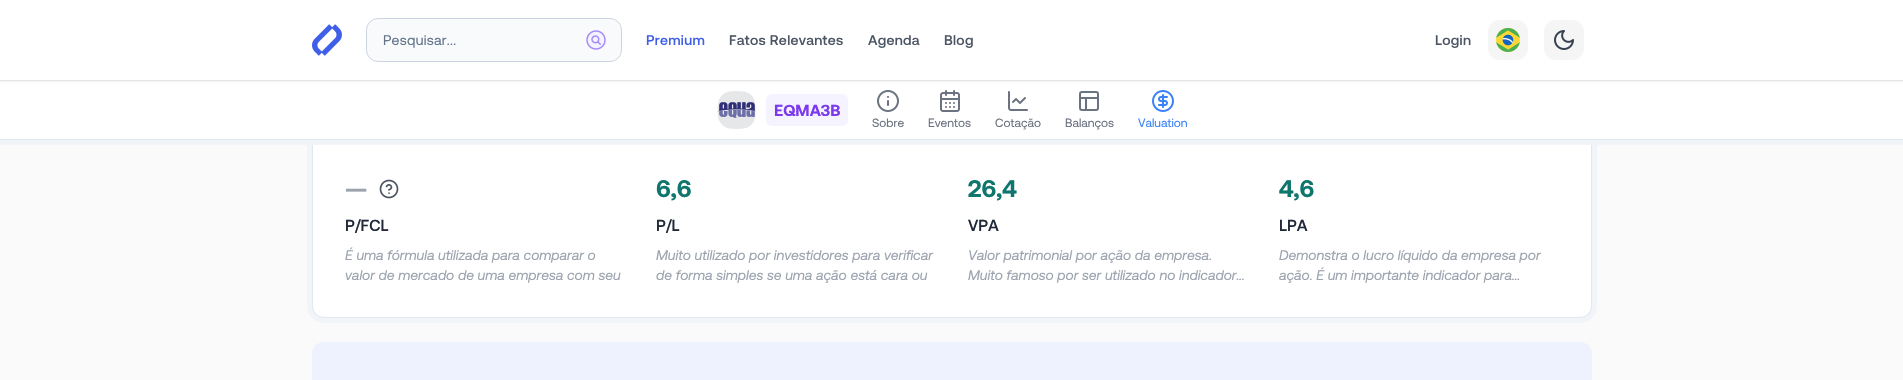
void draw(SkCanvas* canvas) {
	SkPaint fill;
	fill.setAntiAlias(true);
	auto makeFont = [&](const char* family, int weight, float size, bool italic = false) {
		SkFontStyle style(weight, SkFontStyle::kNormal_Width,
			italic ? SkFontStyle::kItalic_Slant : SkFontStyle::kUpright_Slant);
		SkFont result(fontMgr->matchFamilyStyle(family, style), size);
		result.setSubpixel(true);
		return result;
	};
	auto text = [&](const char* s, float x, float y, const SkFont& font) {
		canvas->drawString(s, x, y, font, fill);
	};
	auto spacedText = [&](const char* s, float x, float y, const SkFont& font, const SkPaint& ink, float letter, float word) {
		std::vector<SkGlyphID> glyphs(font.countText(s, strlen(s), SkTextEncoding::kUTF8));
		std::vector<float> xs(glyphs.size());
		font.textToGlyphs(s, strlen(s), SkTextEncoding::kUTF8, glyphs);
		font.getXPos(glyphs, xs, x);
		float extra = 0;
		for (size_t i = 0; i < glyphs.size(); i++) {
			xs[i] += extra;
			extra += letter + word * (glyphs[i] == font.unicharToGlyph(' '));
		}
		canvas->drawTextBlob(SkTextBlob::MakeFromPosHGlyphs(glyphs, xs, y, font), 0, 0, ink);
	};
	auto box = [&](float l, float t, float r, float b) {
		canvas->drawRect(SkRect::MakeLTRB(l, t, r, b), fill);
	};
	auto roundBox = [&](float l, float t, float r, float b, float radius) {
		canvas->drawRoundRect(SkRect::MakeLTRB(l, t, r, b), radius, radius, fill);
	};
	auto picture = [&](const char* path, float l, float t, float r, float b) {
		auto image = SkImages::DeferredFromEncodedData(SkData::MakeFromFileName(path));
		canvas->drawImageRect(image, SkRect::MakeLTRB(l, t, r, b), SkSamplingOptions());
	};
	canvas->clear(0xFFFAFAFA);
	fill.setColor(0x1A000000);
	fill.setMaskFilter(SkMaskFilter::MakeBlur(kNormal_SkBlurStyle, 1));
	canvas->drawRoundRect(SkRect::MakeLTRB(313, -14, 1591, 318), 11, 11, fill);
	fill.setMaskFilter(nullptr);
	fill.setMaskFilter(SkMaskFilter::MakeBlur(kNormal_SkBlurStyle, 1.5f));
	canvas->drawRoundRect(SkRect::MakeLTRB(312, -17, 1592, 319), 12, 12, fill);
	fill.setMaskFilter(nullptr);
	fill.setStyle(SkPaint::kStroke_Style);
	fill.setStrokeWidth(5);
	fill.setColor(0xFFF1F5F9);
	canvas->drawRoundRect(SkRect::MakeLTRB(309.5f, -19.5f, 1594.5f, 320.5f), 14.5f, 14.5f, fill);
	fill.setStrokeWidth(1);
	canvas->drawRoundRect(SkRect::MakeLTRB(311.5f, -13.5f, 1592.5f, 318.5f), 12.5f, 12.5f, fill);
	fill.setStyle(SkPaint::kFill_Style);
	fill.setColor(0xFFFFFFFF);
	canvas->drawRoundRect(SkRect::MakeLTRB(312.5f, -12.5f, 1591.5f, 317.5f), 11.5f, 11.5f, fill);
	fill.setStyle(SkPaint::kStroke_Style);
	fill.setColor(0xFFE2E8F0);
	canvas->drawRoundRect(SkRect::MakeLTRB(312.5f, -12.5f, 1591.5f, 317.5f), 11.5f, 11.5f, fill);
	fill.setStrokeWidth(5);
	fill.setColor(0xFFF1F5F9);
	canvas->drawRect(SkRect::MakeLTRB(-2.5f, 78.5f, 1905.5f, 142.5f), fill);
	fill.setStyle(SkPaint::kFill_Style);
	fill.setColor(0xFFFFFFFF);
	box(0, 81, 1903, 139);
	fill.setColor(0x0D000000);
	fill.setMaskFilter(SkMaskFilter::MakeBlur(kNormal_SkBlurStyle, 1));
	canvas->drawRect(SkRect::MakeLTRB(0, 1, 1903, 82), fill);
	fill.setMaskFilter(nullptr);
	fill.setColor(0xFFFFFFFF);
	box(0, 0, 1903, 80);
	fill.setColor(0xFFE5E5E5);
	box(0, 80, 1903, 81);
	picture("image0.png", 312, 24, 342, 56);
	fill.setColor(0xFFF8FAFC);
	canvas->drawRoundRect(SkRect::MakeLTRB(366.5f, 18.5f, 621.5f, 61.5f), 11.5f, 11.5f, fill);
	fill.setStyle(SkPaint::kStroke_Style);
	fill.setStrokeWidth(1);
	fill.setColor(0xFFCBD5E1);
	canvas->drawRoundRect(SkRect::MakeLTRB(366.5f, 18.5f, 621.5f, 61.5f), 11.5f, 11.5f, fill);
	picture("image1.png", 586, 30, 606, 50);
	fill.setStyle(SkPaint::kFill_Style);
	fill.setColor(0xFFF5F5F5);
	roundBox(1488, 20, 1528, 60, 12);
	picture("image2.png", 1496, 28, 1520, 52);
	roundBox(1544, 20, 1584, 60, 12);
	picture("image3.png", 1554, 30, 1574, 50);
	fill.setColor(0xFFE2E8F0);
	box(0, 139, 1903, 140);
	picture("image4.png", 717, 91, 756, 129);
	fill.setColor(0xFFF5F3FF);
	roundBox(766, 94, 848, 126, 6);
	picture("image5.png", 877, 90, 899, 112);
	picture("image6.png", 940, 90, 960, 112);
	picture("image7.png", 1008, 91, 1028, 111);
	fill.setStyle(SkPaint::kStroke_Style);
	fill.setStrokeWidth(2);
	fill.setColor(0xFF6B7280);
	canvas->drawRoundRect(SkRect::MakeLTRB(1080, 92, 1098, 110), 2, 2, fill);
	fill.setStrokeCap(SkPaint::kRound_Cap);
	fill.setStrokeJoin(SkPaint::kRound_Join);
	canvas->drawPath(SkPathBuilder().moveTo(1080, 98).lineTo(1098, 98).moveTo(1086, 110).lineTo(1086, 98).detach(), fill);
	picture("image8.png", 1152, 90, 1174, 112);
	picture("image9.png", 379, 179, 399, 199);
	fill.setStyle(SkPaint::kFill_Style);
	fill.setColor(0xFFEEF2FF);
	roundBox(312, 342, 1592, 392, 12);
	auto font1 = makeFont("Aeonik", 400, 14);
	fill.setColor(0xFF64748B);
	spacedText("Pesquisar...", 383, 45, font1, fill, 0.3f, 0);
	auto font2 = makeFont("Aeonik", 500, 14);
	fill.setColor(0xFF3F5FE9);
	spacedText("Premium", 646, 45, font2, fill, 0.3f, 0);
	fill.setColor(0xFF4B5563);
	spacedText("Fatos Relevantes", 729, 45, font2, fill, 0.3f, 0);
	spacedText("Agenda", 868, 45, font2, fill, 0.3f, 0);
	spacedText("Blog", 944, 45, font2, fill, 0.3f, 0);
	spacedText("Login", 1435, 45, font2, fill, 0.3f, 0);
	auto font3 = makeFont("Aeonik", 700, 16);
	fill.setColor(0xFF7C3AED);
	text("EQMA3B", 774, 116, font3);
	auto font4 = makeFont("Aeonik", 400, 12);
	fill.setColor(0xFF6B7280);
	text("Sobre", 872, 127, font4);
	text("Eventos", 928, 127, font4);
	text("Cotação", 995, 127, font4);
	text("Balanços", 1065, 127, font4);
	fill.setColor(0xFF3B82F6);
	text("Valuation", 1138, 127, font4);
	auto font5 = makeFont("Aeonik", 700, 24);
	fill.setColor(0xFF9CA3AF);
	text("—", 345, 197, font5);
	auto font6 = makeFont("Aeonik", 500, 16);
	fill.setColor(0xFF1F2937);
	text("P/FCL", 345, 231, font6);
	auto font7 = makeFont("Aeonik", 400, 14, true);
	fill.setColor(0xFF9CA3AF);
	text("É uma fórmula utilizada para comparar o", 345, 260, font7);
	text("valor de mercado de uma empresa com seu", 345, 280, font7);
	fill.setColor(0xFF0F766E);
	text("6,6", 656, 197, font5);
	fill.setColor(0xFF1F2937);
	text("P/L", 656, 231, font6);
	fill.setColor(0xFF9CA3AF);
	text("Muito utilizado por investidores para verificar", 656, 260, font7);
	text("de forma simples se uma ação está cara ou", 656, 280, font7);
	fill.setColor(0xFF0F766E);
	text("26,4", 968, 197, font5);
	fill.setColor(0xFF1F2937);
	text("VPA", 968, 231, font6);
	fill.setColor(0xFF9CA3AF);
	text("Valor patrimonial por ação da empresa.", 968, 260, font7);
	text("Muito famoso por ser utilizado no indicador…", 968, 280, font7);
	fill.setColor(0xFF0F766E);
	text("4,6", 1279, 197, font5);
	fill.setColor(0xFF1F2937);
	text("LPA", 1279, 231, font6);
	fill.setColor(0xFF9CA3AF);
	text("Demonstra o lucro líquido da empresa por", 1279, 260, font7);
	text("ação. É um importante indicador para…", 1279, 280, font7);
}
